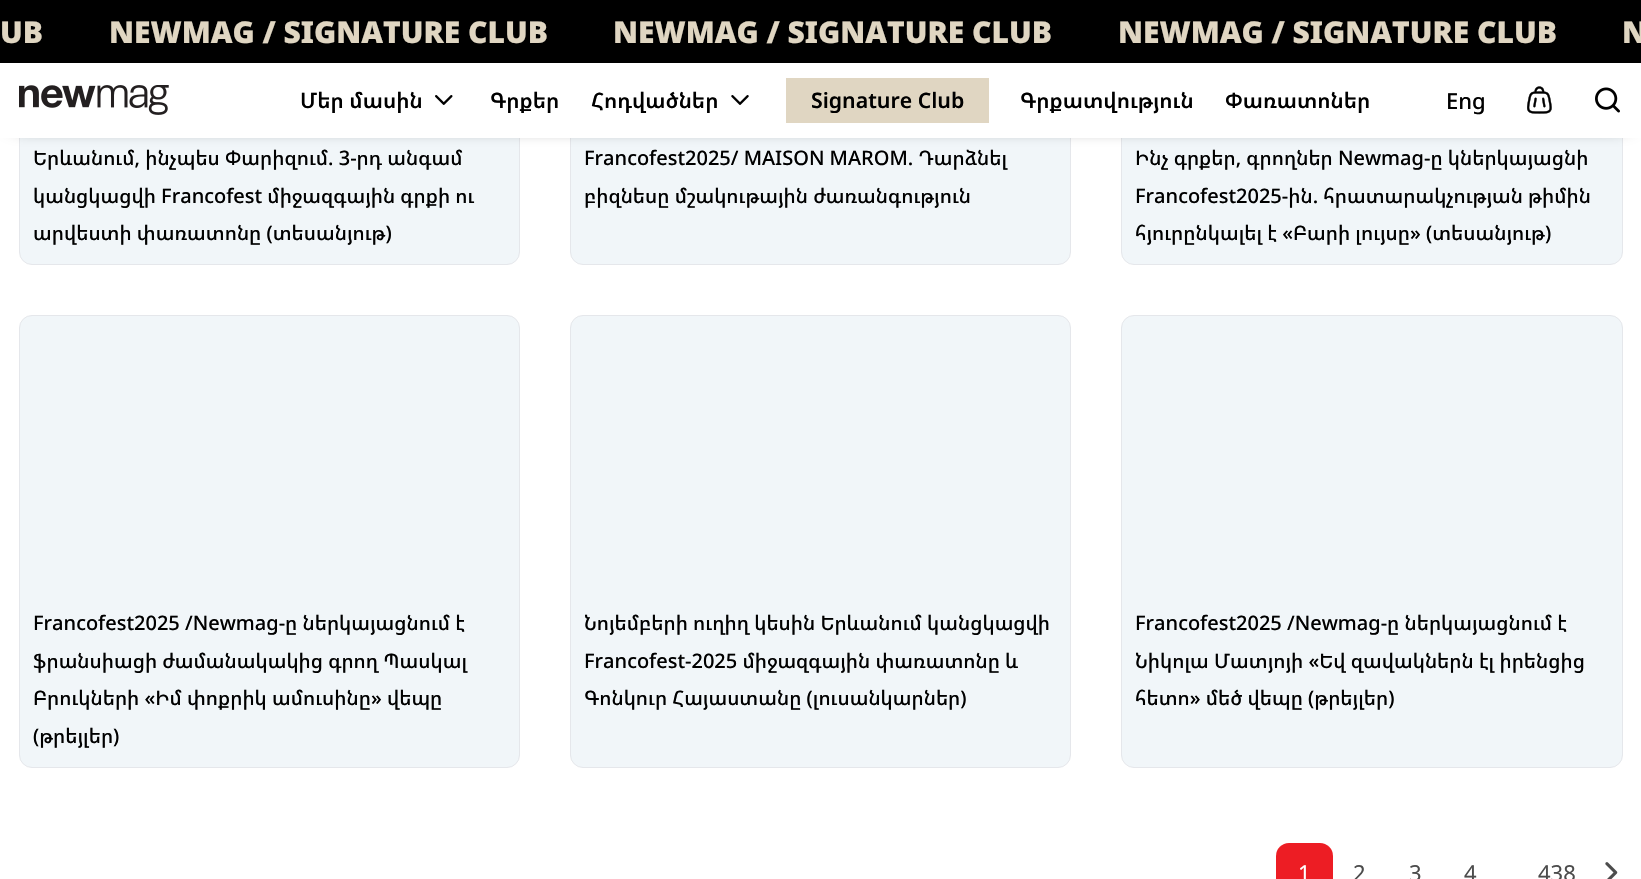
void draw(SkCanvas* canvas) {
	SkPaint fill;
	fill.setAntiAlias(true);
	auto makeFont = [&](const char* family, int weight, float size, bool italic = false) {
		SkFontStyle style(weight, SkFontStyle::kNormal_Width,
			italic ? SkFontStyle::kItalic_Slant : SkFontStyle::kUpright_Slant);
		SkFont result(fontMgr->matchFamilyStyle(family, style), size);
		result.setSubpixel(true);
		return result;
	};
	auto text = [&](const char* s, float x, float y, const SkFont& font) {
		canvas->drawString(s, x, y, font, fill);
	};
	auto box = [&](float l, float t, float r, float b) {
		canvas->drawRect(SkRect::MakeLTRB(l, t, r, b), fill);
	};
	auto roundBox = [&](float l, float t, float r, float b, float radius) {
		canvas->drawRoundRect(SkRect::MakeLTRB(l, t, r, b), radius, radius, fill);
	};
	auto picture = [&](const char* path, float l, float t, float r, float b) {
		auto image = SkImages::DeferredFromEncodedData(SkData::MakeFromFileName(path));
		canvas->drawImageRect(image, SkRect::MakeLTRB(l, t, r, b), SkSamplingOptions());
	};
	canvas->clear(0xFFFFFFFF);
	fill.setColor(0xFFF1F6F9);
	canvas->drawRoundRect(SkRect::MakeLTRB(19.5f, -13.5f, 519.5f, 264.5f), 12.5f, 12.5f, fill);
	fill.setStyle(SkPaint::kStroke_Style);
	fill.setStrokeWidth(1);
	fill.setColor(0xFFE5E7EB);
	canvas->drawRoundRect(SkRect::MakeLTRB(19.5f, -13.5f, 519.5f, 264.5f), 12.5f, 12.5f, fill);
	fill.setStyle(SkPaint::kFill_Style);
	fill.setColor(0xFFF1F6F9);
	canvas->drawRoundRect(SkRect::MakeLTRB(570.5f, -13.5f, 1070.5f, 264.5f), 12.5f, 12.5f, fill);
	fill.setStyle(SkPaint::kStroke_Style);
	fill.setColor(0xFFE5E7EB);
	canvas->drawRoundRect(SkRect::MakeLTRB(570.5f, -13.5f, 1070.5f, 264.5f), 12.5f, 12.5f, fill);
	fill.setStyle(SkPaint::kFill_Style);
	fill.setColor(0xFFF1F6F9);
	canvas->drawRoundRect(SkRect::MakeLTRB(1121.5f, -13.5f, 1622.5f, 264.5f), 12.5f, 12.5f, fill);
	fill.setStyle(SkPaint::kStroke_Style);
	fill.setColor(0xFFE5E7EB);
	canvas->drawRoundRect(SkRect::MakeLTRB(1121.5f, -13.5f, 1622.5f, 264.5f), 12.5f, 12.5f, fill);
	fill.setStyle(SkPaint::kFill_Style);
	fill.setColor(0xFF000000);
	fill.setMaskFilter(SkMaskFilter::MakeBlur(kNormal_SkBlurStyle, 10));
	canvas->drawRect(SkRect::MakeLTRB(15, 78, 1626, 123), fill);
	fill.setMaskFilter(nullptr);
	box(0, 0, 1641, 63);
	fill.setColor(0xFFFFFFFF);
	box(0, 63, 1641, 138);
	picture("image0.png", 19, 85, 169, 115);
	picture("image1.png", 435, 95, 453, 105);
	picture("image2.png", 731, 95, 749, 105);
	fill.setColor(0xFFE0D6C2);
	box(786, 78, 989, 123);
	picture("image3.png", 1527, 86, 1552, 114);
	picture("image4.png", 1595, 87, 1620, 113);
	fill.setColor(0xFFF1F6F9);
	canvas->drawRoundRect(SkRect::MakeLTRB(19.5f, 315.5f, 519.5f, 767.5f), 12.5f, 12.5f, fill);
	fill.setStyle(SkPaint::kStroke_Style);
	fill.setColor(0xFFE5E7EB);
	canvas->drawRoundRect(SkRect::MakeLTRB(19.5f, 315.5f, 519.5f, 767.5f), 12.5f, 12.5f, fill);
	fill.setStyle(SkPaint::kFill_Style);
	fill.setColor(0xFFF1F6F9);
	canvas->drawRoundRect(SkRect::MakeLTRB(570.5f, 315.5f, 1070.5f, 767.5f), 12.5f, 12.5f, fill);
	fill.setStyle(SkPaint::kStroke_Style);
	fill.setColor(0xFFE5E7EB);
	canvas->drawRoundRect(SkRect::MakeLTRB(570.5f, 315.5f, 1070.5f, 767.5f), 12.5f, 12.5f, fill);
	fill.setStyle(SkPaint::kFill_Style);
	fill.setColor(0xFFF1F6F9);
	canvas->drawRoundRect(SkRect::MakeLTRB(1121.5f, 315.5f, 1622.5f, 767.5f), 12.5f, 12.5f, fill);
	fill.setStyle(SkPaint::kStroke_Style);
	fill.setColor(0xFFE5E7EB);
	canvas->drawRoundRect(SkRect::MakeLTRB(1121.5f, 315.5f, 1622.5f, 767.5f), 12.5f, 12.5f, fill);
	fill.setStyle(SkPaint::kFill_Style);
	fill.setColor(0xFFED1D24);
	roundBox(1276, 843, 1333, 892, 13);
	picture("image5.png", 1605, 862, 1618, 879);
	auto font1 = makeFont("Noto Sans Armenian", 900, 30);
	fill.setColor(0xFFE0D6C2);
	text("UB", 0, 43, font1);
	text("NEWMAG / SIGNATURE CLUB", 109, 43, font1);
	text("NEWMAG / SIGNATURE CLUB", 613, 43, font1);
	text("NEWMAG / SIGNATURE CLUB", 1118, 43, font1);
	text("N", 1622, 43, font1);
	auto font2 = makeFont("Noto Sans Armenian", 600, 21.25f);
	fill.setColor(0xFF000000);
	text("Մեր մասին", 300, 108, font2);
	text("Գրքեր", 490, 108, font2);
	text("Հոդվածներ", 591, 108, font2);
	text("Signature Club", 811, 108, font2);
	text("Գրքատվություն", 1020, 108, font2);
	text("Փառատոներ", 1225, 108, font2);
	auto font3 = makeFont("Noto Sans Armenian", 500, 22);
	text("Eng", 1446, 109, font3);
	auto font4 = makeFont("Noto Sans Armenian", 500, 20);
	text("Երևանում, ինչպես Փարիզում. 3-րդ անգամ", 33, 165, font4);
	text("կանցկացվի Francofest միջազգային գրքի ու", 33, 203, font4);
	text("արվեստի փառատոնը (տեսանյութ)", 33, 240, font4);
	text("Francofest2025/ MAISON MAROM. Դարձնել", 584, 165, font4);
	text("բիզնեսը մշակութային ժառանգություն", 584, 203, font4);
	text("Ինչ գրքեր, գրողներ Newmag-ը կներկայացնի", 1135, 165, font4);
	text("Francofest2025-ին. հրատարակչության թիմին", 1135, 203, font4);
	text("հյուրընկալել է «Բարի լույսը» (տեսանյութ)", 1135, 240, font4);
	text("Francofest2025 /Newmag-ը ներկայացնում է", 33, 630, font4);
	text("ֆրանսիացի ժամանակակից գրող Պասկալ", 33, 668, font4);
	text("Բրուկների «Իմ փոքրիկ ամուսինը» վեպը", 33, 705, font4);
	text("(թրեյլեր)", 33, 743, font4);
	text("Նոյեմբերի ուղիղ կեսին Երևանում կանցկացվի", 584, 630, font4);
	text("Francofest-2025 միջազգային փառատոնը և", 584, 668, font4);
	text("Գոնկուր Հայաստանը (լուսանկարներ)", 584, 705, font4);
	text("Francofest2025 /Newmag-ը ներկայացնում է", 1135, 630, font4);
	text("Նիկոլա Մատյոյի «Եվ զավակներն էլ իրենցից", 1135, 668, font4);
	text("հետո» մեծ վեպը (թրեյլեր)", 1135, 705, font4);
	auto font5 = makeFont("Noto Sans Armenian", 400, 22);
	fill.setColor(0xFFFFFFFF);
	text("1", 1298, 881, font5);
	fill.setColor(0xFF4C4C4C);
	text("2", 1353, 881, font5);
	text("3", 1409, 881, font5);
	text("4", 1464, 881, font5);
	text("438", 1538, 881, font5);
}
